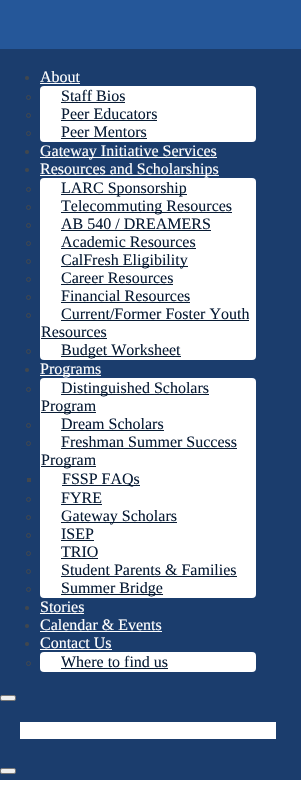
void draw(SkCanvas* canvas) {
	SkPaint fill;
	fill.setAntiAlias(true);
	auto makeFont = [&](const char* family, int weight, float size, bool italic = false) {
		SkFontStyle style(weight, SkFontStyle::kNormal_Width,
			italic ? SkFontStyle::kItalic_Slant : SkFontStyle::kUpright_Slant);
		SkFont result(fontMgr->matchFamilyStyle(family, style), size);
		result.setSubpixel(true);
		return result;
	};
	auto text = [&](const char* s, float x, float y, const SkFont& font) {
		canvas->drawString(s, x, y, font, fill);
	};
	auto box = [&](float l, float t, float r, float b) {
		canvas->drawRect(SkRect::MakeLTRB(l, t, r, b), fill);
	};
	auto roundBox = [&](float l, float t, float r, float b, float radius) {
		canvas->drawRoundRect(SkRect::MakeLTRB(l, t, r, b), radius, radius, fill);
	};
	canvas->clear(0xFFFFFFFF);
	fill.setColor(0xFF255799);
	box(0, 0, 301, 49);
	fill.setColor(0xFF1B3D6D);
	box(0, 49, 301, 780);
	fill.setColor(0xFF42474D);
	canvas->drawCircle(27, 78, 2, fill);
	fill.setColor(0xFFFFFFFF);
	box(40, 83, 80, 84);
	roundBox(40, 86, 256, 142, 4);
	fill.setStyle(SkPaint::kStroke_Style);
	fill.setStrokeWidth(1);
	fill.setColor(0xFF42474D);
	canvas->drawCircle(28.5f, 97.5f, 2, fill);
	fill.setStyle(SkPaint::kFill_Style);
	fill.setColor(0xFF091C35);
	box(61, 102, 125, 103);
	fill.setStyle(SkPaint::kStroke_Style);
	fill.setColor(0xFF42474D);
	canvas->drawCircle(28.5f, 115.5f, 2, fill);
	fill.setStyle(SkPaint::kFill_Style);
	fill.setColor(0xFF091C35);
	box(61, 120, 157, 121);
	fill.setStyle(SkPaint::kStroke_Style);
	fill.setColor(0xFF42474D);
	canvas->drawCircle(28.5f, 133.5f, 2, fill);
	fill.setStyle(SkPaint::kFill_Style);
	fill.setColor(0xFF091C35);
	box(61, 138, 147, 139);
	fill.setColor(0xFF42474D);
	canvas->drawCircle(27, 152, 2, fill);
	fill.setColor(0xFFFFFFFF);
	box(40, 157, 217, 158);
	fill.setColor(0xFF42474D);
	canvas->drawCircle(27, 170, 2, fill);
	fill.setColor(0xFFFFFFFF);
	box(40, 175, 219, 176);
	roundBox(40, 178, 256, 360, 4);
	fill.setStyle(SkPaint::kStroke_Style);
	fill.setColor(0xFF42474D);
	canvas->drawCircle(28.5f, 189.5f, 2, fill);
	fill.setStyle(SkPaint::kFill_Style);
	fill.setColor(0xFF091C35);
	box(61, 194, 187, 195);
	fill.setStyle(SkPaint::kStroke_Style);
	fill.setColor(0xFF42474D);
	canvas->drawCircle(28.5f, 207.5f, 2, fill);
	fill.setStyle(SkPaint::kFill_Style);
	fill.setColor(0xFF091C35);
	box(61, 212, 232, 213);
	fill.setStyle(SkPaint::kStroke_Style);
	fill.setColor(0xFF42474D);
	canvas->drawCircle(28.5f, 225.5f, 2, fill);
	fill.setStyle(SkPaint::kFill_Style);
	fill.setColor(0xFF091C35);
	box(61, 230, 211, 231);
	fill.setStyle(SkPaint::kStroke_Style);
	fill.setColor(0xFF42474D);
	canvas->drawCircle(28.5f, 243.5f, 2, fill);
	fill.setStyle(SkPaint::kFill_Style);
	fill.setColor(0xFF091C35);
	box(61, 248, 196, 249);
	fill.setStyle(SkPaint::kStroke_Style);
	fill.setColor(0xFF42474D);
	canvas->drawCircle(28.5f, 261.5f, 2, fill);
	fill.setStyle(SkPaint::kFill_Style);
	fill.setColor(0xFF091C35);
	box(61, 266, 188, 267);
	fill.setStyle(SkPaint::kStroke_Style);
	fill.setColor(0xFF42474D);
	canvas->drawCircle(28.5f, 279.5f, 2, fill);
	fill.setStyle(SkPaint::kFill_Style);
	fill.setColor(0xFF091C35);
	box(61, 284, 173, 285);
	fill.setStyle(SkPaint::kStroke_Style);
	fill.setColor(0xFF42474D);
	canvas->drawCircle(28.5f, 297.5f, 2, fill);
	fill.setStyle(SkPaint::kFill_Style);
	fill.setColor(0xFF091C35);
	box(61, 302, 190, 303);
	fill.setStyle(SkPaint::kStroke_Style);
	fill.setColor(0xFF42474D);
	canvas->drawCircle(28.5f, 315.5f, 2, fill);
	fill.setStyle(SkPaint::kFill_Style);
	fill.setColor(0xFF091C35);
	box(61, 320, 249, 321);
	box(41, 338, 107, 339);
	fill.setStyle(SkPaint::kStroke_Style);
	fill.setColor(0xFF42474D);
	canvas->drawCircle(28.5f, 351.5f, 2, fill);
	fill.setStyle(SkPaint::kFill_Style);
	fill.setColor(0xFF091C35);
	box(61, 356, 181, 357);
	fill.setColor(0xFF42474D);
	canvas->drawCircle(27, 370, 2, fill);
	fill.setColor(0xFFFFFFFF);
	box(40, 375, 101, 376);
	roundBox(40, 378, 256, 598, 4);
	fill.setStyle(SkPaint::kStroke_Style);
	fill.setColor(0xFF42474D);
	canvas->drawCircle(28.5f, 389.5f, 2, fill);
	fill.setStyle(SkPaint::kFill_Style);
	fill.setColor(0xFF091C35);
	box(61, 394, 209, 395);
	box(41, 412, 96, 413);
	fill.setStyle(SkPaint::kStroke_Style);
	fill.setColor(0xFF42474D);
	canvas->drawCircle(28.5f, 425.5f, 2, fill);
	fill.setStyle(SkPaint::kFill_Style);
	fill.setColor(0xFF091C35);
	box(61, 430, 164, 431);
	fill.setStyle(SkPaint::kStroke_Style);
	fill.setColor(0xFF42474D);
	canvas->drawCircle(28.5f, 443.5f, 2, fill);
	fill.setStyle(SkPaint::kFill_Style);
	fill.setColor(0xFF091C35);
	box(61, 448, 237, 449);
	box(41, 466, 96, 467);
	fill.setColor(0xFF42474D);
	box(27, 478, 31, 482);
	fill.setColor(0xFF091C35);
	box(62, 485, 140, 486);
	fill.setStyle(SkPaint::kStroke_Style);
	fill.setColor(0xFF42474D);
	canvas->drawCircle(28.5f, 499.5f, 2, fill);
	fill.setStyle(SkPaint::kFill_Style);
	fill.setColor(0xFF091C35);
	box(61, 504, 102, 505);
	fill.setStyle(SkPaint::kStroke_Style);
	fill.setColor(0xFF42474D);
	canvas->drawCircle(28.5f, 517.5f, 2, fill);
	fill.setStyle(SkPaint::kFill_Style);
	fill.setColor(0xFF091C35);
	box(61, 522, 177, 523);
	fill.setStyle(SkPaint::kStroke_Style);
	fill.setColor(0xFF42474D);
	canvas->drawCircle(28.5f, 535.5f, 2, fill);
	fill.setStyle(SkPaint::kFill_Style);
	fill.setColor(0xFF091C35);
	box(61, 540, 94, 541);
	fill.setStyle(SkPaint::kStroke_Style);
	fill.setColor(0xFF42474D);
	canvas->drawCircle(28.5f, 553.5f, 2, fill);
	fill.setStyle(SkPaint::kFill_Style);
	fill.setColor(0xFF091C35);
	box(61, 558, 98, 559);
	fill.setStyle(SkPaint::kStroke_Style);
	fill.setColor(0xFF42474D);
	canvas->drawCircle(28.5f, 571.5f, 2, fill);
	fill.setStyle(SkPaint::kFill_Style);
	fill.setColor(0xFF091C35);
	box(61, 576, 237, 577);
	fill.setStyle(SkPaint::kStroke_Style);
	fill.setColor(0xFF42474D);
	canvas->drawCircle(28.5f, 589.5f, 2, fill);
	fill.setStyle(SkPaint::kFill_Style);
	fill.setColor(0xFF091C35);
	box(61, 594, 163, 595);
	fill.setColor(0xFF42474D);
	canvas->drawCircle(27, 608, 2, fill);
	fill.setColor(0xFFFFFFFF);
	box(40, 613, 84, 614);
	fill.setColor(0xFF42474D);
	canvas->drawCircle(27, 626, 2, fill);
	fill.setColor(0xFFFFFFFF);
	box(40, 631, 162, 632);
	fill.setColor(0xFF42474D);
	canvas->drawCircle(27, 644, 2, fill);
	fill.setColor(0xFFFFFFFF);
	box(40, 649, 112, 650);
	roundBox(40, 652, 256, 672, 4);
	fill.setStyle(SkPaint::kStroke_Style);
	fill.setColor(0xFF42474D);
	canvas->drawCircle(28.5f, 663.5f, 2, fill);
	fill.setStyle(SkPaint::kFill_Style);
	fill.setColor(0xFF091C35);
	box(61, 668, 168, 669);
	fill.setColor(0xFFEFEFEF);
	canvas->drawRoundRect(SkRect::MakeLTRB(0.5f, 695.5f, 15.5f, 700.5f), 1.5f, 1.5f, fill);
	fill.setStyle(SkPaint::kStroke_Style);
	fill.setColor(0xFF767676);
	canvas->drawRoundRect(SkRect::MakeLTRB(0.5f, 695.5f, 15.5f, 700.5f), 1.5f, 1.5f, fill);
	fill.setStyle(SkPaint::kFill_Style);
	fill.setColor(0xFFFFFFFF);
	box(20, 722, 276, 739);
	fill.setColor(0xFFEFEFEF);
	canvas->drawRoundRect(SkRect::MakeLTRB(0.5f, 768.5f, 15.5f, 773.5f), 1.5f, 1.5f, fill);
	fill.setStyle(SkPaint::kStroke_Style);
	fill.setColor(0xFF767676);
	canvas->drawRoundRect(SkRect::MakeLTRB(0.5f, 768.5f, 15.5f, 773.5f), 1.5f, 1.5f, fill);
	auto font1 = makeFont("Liberation Serif", 400, 16);
	fill.setStyle(SkPaint::kFill_Style);
	fill.setColor(0xFFFFFFFF);
	text("About", 40, 82, font1);
	fill.setColor(0xFF091C35);
	text("Staff Bios", 61, 101, font1);
	text("Peer Educators", 61, 119, font1);
	text("Peer Mentors", 61, 137, font1);
	fill.setColor(0xFFFFFFFF);
	text("Gateway Initiative Services", 40, 156, font1);
	text("Resources and Scholarships", 40, 174, font1);
	fill.setColor(0xFF091C35);
	text("LARC Sponsorship", 61, 193, font1);
	text("Telecommuting Resources", 61, 211, font1);
	text("AB 540 / DREAMERS", 61, 229, font1);
	text("Academic Resources", 61, 247, font1);
	text("CalFresh Eligibility", 61, 265, font1);
	text("Career Resources", 61, 283, font1);
	text("Financial Resources", 61, 301, font1);
	text("Current/Former Foster Youth", 61, 319, font1);
	text("Resources", 41, 337, font1);
	text("Budget Worksheet", 61, 355, font1);
	fill.setColor(0xFFFFFFFF);
	text("Programs", 40, 374, font1);
	fill.setColor(0xFF091C35);
	text("Distinguished Scholars", 61, 393, font1);
	text("Program", 41, 411, font1);
	text("Dream Scholars", 61, 429, font1);
	text("Freshman Summer Success", 61, 447, font1);
	text("Program", 41, 465, font1);
	text("FSSP FAQs", 62, 484, font1);
	text("FYRE", 61, 503, font1);
	text("Gateway Scholars", 61, 521, font1);
	text("ISEP", 61, 539, font1);
	text("TRIO", 61, 557, font1);
	text("Student Parents & Families", 61, 575, font1);
	text("Summer Bridge", 61, 593, font1);
	fill.setColor(0xFFFFFFFF);
	text("Stories", 40, 612, font1);
	text("Calendar & Events", 40, 630, font1);
	text("Contact Us", 40, 648, font1);
	fill.setColor(0xFF091C35);
	text("Where to find us", 61, 667, font1);
}
